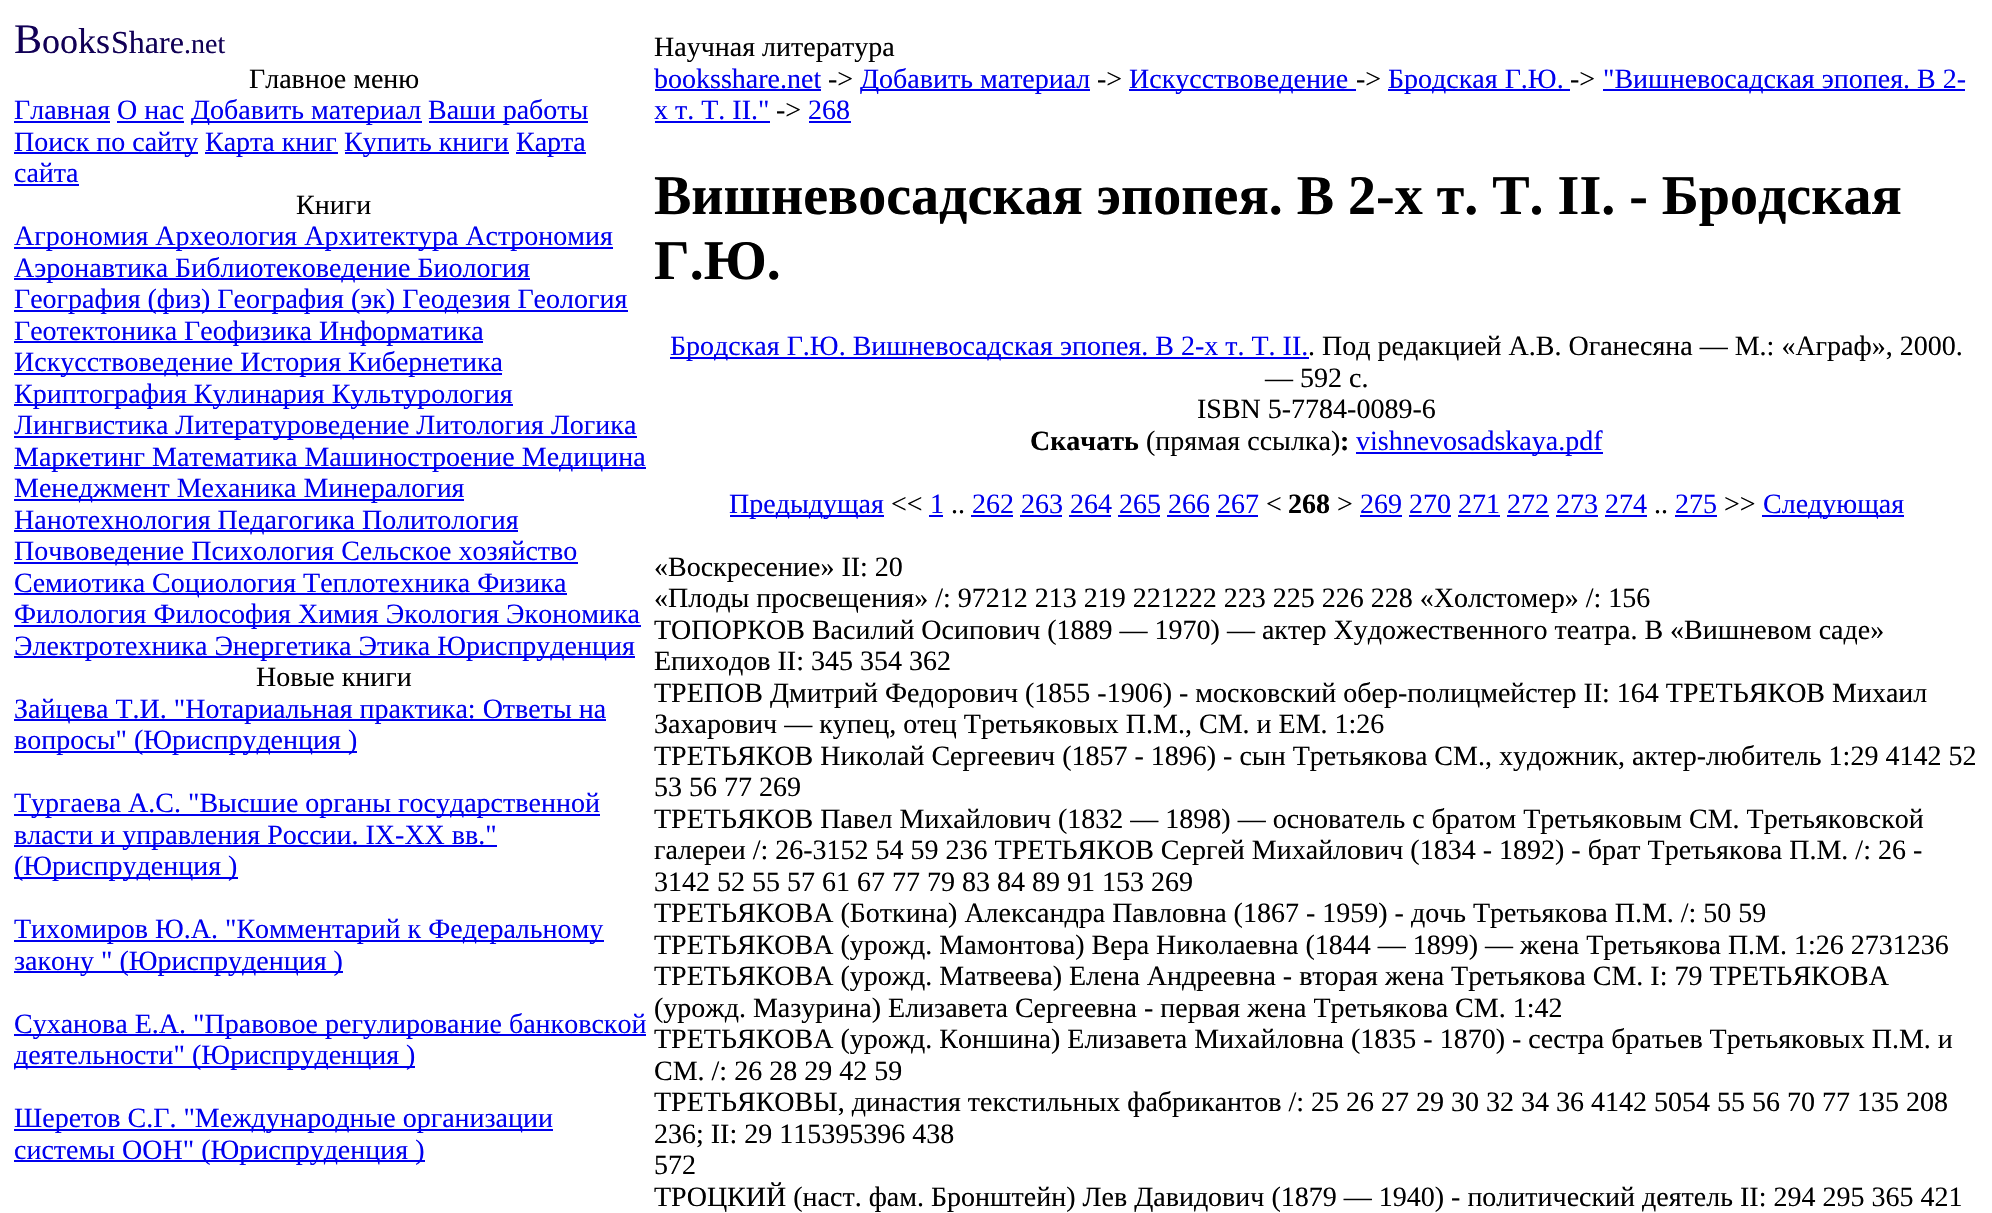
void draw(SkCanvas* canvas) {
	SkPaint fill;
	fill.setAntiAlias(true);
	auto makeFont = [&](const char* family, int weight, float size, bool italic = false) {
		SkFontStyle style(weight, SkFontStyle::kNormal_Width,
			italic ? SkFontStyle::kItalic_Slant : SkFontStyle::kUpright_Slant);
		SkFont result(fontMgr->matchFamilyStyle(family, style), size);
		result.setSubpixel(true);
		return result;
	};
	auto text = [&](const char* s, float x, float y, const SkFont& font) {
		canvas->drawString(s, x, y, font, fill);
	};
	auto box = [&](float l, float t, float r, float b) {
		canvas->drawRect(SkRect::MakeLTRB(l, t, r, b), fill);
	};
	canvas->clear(0xFFFFFFFF);
	fill.setColor(0xFF0000EE);
	box(14, 121, 110, 123);
	box(191, 121, 422, 123);
	box(429, 121, 588, 123);
	box(117, 121, 184, 123);
	box(14, 152, 198, 154);
	box(205, 152, 338, 154);
	box(345, 152, 509, 154);
	box(516, 152, 586, 154);
	box(14, 184, 79, 186);
	box(14, 247, 613, 249);
	box(14, 278, 530, 280);
	box(14, 310, 628, 312);
	box(14, 341, 483, 343);
	box(14, 373, 502, 375);
	box(14, 404, 513, 406);
	box(14, 436, 637, 438);
	box(14, 467, 646, 469);
	box(14, 499, 464, 501);
	box(14, 530, 518, 532);
	box(14, 562, 578, 564);
	box(14, 593, 567, 595);
	box(14, 625, 641, 627);
	box(14, 656, 635, 658);
	box(14, 719, 606, 721);
	box(14, 751, 357, 753);
	box(14, 814, 600, 816);
	box(14, 845, 497, 847);
	box(14, 877, 238, 879);
	box(14, 940, 604, 942);
	box(14, 971, 343, 973);
	box(14, 1034, 646, 1036);
	box(14, 1066, 415, 1068);
	box(14, 1129, 553, 1131);
	box(14, 1160, 425, 1162);
	box(655, 89, 821, 91);
	box(861, 89, 1090, 91);
	box(1129, 89, 1356, 91);
	box(1388, 89, 1570, 91);
	box(1603, 89, 1965, 91);
	box(655, 121, 770, 123);
	box(809, 121, 851, 123);
	box(670, 357, 1309, 359);
	box(1356, 452, 1603, 454);
	box(730, 515, 884, 517);
	box(929, 515, 943, 517);
	box(971, 515, 1013, 517);
	box(1360, 515, 1402, 517);
	box(1675, 515, 1717, 517);
	box(1762, 515, 1904, 517);
	box(1020, 515, 1062, 517);
	box(1069, 515, 1111, 517);
	box(1118, 515, 1160, 517);
	box(1167, 515, 1209, 517);
	box(1216, 515, 1258, 517);
	box(1409, 515, 1451, 517);
	box(1458, 515, 1500, 517);
	box(1507, 515, 1549, 517);
	box(1556, 515, 1598, 517);
	box(1605, 515, 1647, 517);
	auto font1 = makeFont("Liberation Serif", 400, 42);
	fill.setColor(0xFF110055);
	text("B", 14, 53, font1);
	auto font2 = makeFont("Liberation Serif", 400, 36);
	text("ooks", 42, 53, font2);
	auto font3 = makeFont("Liberation Serif", 400, 32);
	text("Share", 111, 53, font3);
	auto font4 = makeFont("Liberation Serif", 400, 28);
	text(".net", 184, 53, font4);
	fill.setColor(0xFF000000);
	text("Научная литература", 654, 56, font4);
	text("Главное меню", 249, 88, font4);
	fill.setColor(0xFF0000EE);
	text("Главная О нас", 14, 119, font4);
	text("Добавить материал", 191, 119, font4);
	text("Ваши работы", 428, 119, font4);
	text("Поиск по сайту", 14, 151, font4);
	text("Карта книг", 205, 151, font4);
	text("Купить книги", 344, 151, font4);
	text("Карта", 516, 151, font4);
	text("сайта", 14, 182, font4);
	fill.setColor(0xFF000000);
	text("Книги", 296, 214, font4);
	fill.setColor(0xFF0000EE);
	text("Агрономия Археология Архитектура Астрономия", 14, 245, font4);
	text("Аэронавтика Библиотековедение Биология", 14, 277, font4);
	text("География (физ) География (эк) Геодезия Геология", 14, 308, font4);
	text("Геотектоника Геофизика Информатика", 14, 340, font4);
	text("Искусствоведение История Кибернетика", 14, 371, font4);
	text("Криптография Кулинария Культурология", 14, 403, font4);
	text("Лингвистика Литературоведение Литология Логика", 14, 434, font4);
	text("Маркетинг Математика Машиностроение Медицина", 14, 466, font4);
	text("Менеджмент Механика Минералогия", 14, 497, font4);
	text("Нанотехнология Педагогика Политология", 14, 529, font4);
	text("Почвоведение Психология Сельское хозяйство", 14, 560, font4);
	text("Семиотика Социология Теплотехника Физика", 14, 592, font4);
	text("Филология Философия Химия Экология Экономика", 14, 623, font4);
	text("Электротехника Энергетика Этика Юриспруденция", 14, 655, font4);
	fill.setColor(0xFF000000);
	text("Новые книги", 256, 686, font4);
	fill.setColor(0xFF0000EE);
	text("Зайцева Т.И. \"Нотариальная практика: Ответы на", 14, 718, font4);
	text("вопросы\" (Юриспруденция )", 14, 749, font4);
	text("Тургаева А.С. \"Высшие органы государственной", 14, 812, font4);
	text("власти и управления России. IХ-ХХ вв.\"", 14, 844, font4);
	text("(Юриспруденция )", 14, 875, font4);
	text("Тихомиров Ю.А. \"Комментарий к Федеральному", 14, 938, font4);
	text("закону \" (Юриспруденция )", 14, 970, font4);
	text("Суханова Е.А. \"Правовое регулирование банковской", 14, 1033, font4);
	text("деятельности\" (Юриспруденция )", 14, 1064, font4);
	text("Шеретов С.Г. \"Международные организации", 14, 1127, font4);
	text("системы ООН\" (Юриспруденция )", 14, 1159, font4);
	text("booksshare.net", 654, 88, font4);
	fill.setColor(0xFF000000);
	text("->", 828, 88, font4);
	fill.setColor(0xFF0000EE);
	text("Добавить материал", 860, 88, font4);
	fill.setColor(0xFF000000);
	text("->", 1097, 88, font4);
	fill.setColor(0xFF0000EE);
	text("Искусствоведение", 1129, 88, font4);
	fill.setColor(0xFF000000);
	text("->", 1356, 88, font4);
	fill.setColor(0xFF0000EE);
	text("Бродская Г.Ю.", 1388, 88, font4);
	fill.setColor(0xFF000000);
	text("->", 1570, 88, font4);
	fill.setColor(0xFF0000EE);
	text("\"Вишневосадская эпопея. В 2-", 1603, 88, font4);
	text("х т. Т. II.\"", 654, 119, font4);
	fill.setColor(0xFF000000);
	text("->", 776, 119, font4);
	fill.setColor(0xFF0000EE);
	text("268", 808, 119, font4);
	auto font5 = makeFont("Liberation Serif", 700, 56);
	fill.setColor(0xFF000000);
	text("Вишневосадская эпопея. В 2-х т. Т. II. - Бродская", 654, 214, font5);
	text("Г.Ю.", 654, 279, font5);
	fill.setColor(0xFF0000EE);
	text("Бродская Г.Ю. Вишневосадская эпопея. В 2-х т. Т. II.", 670, 355, font4);
	fill.setColor(0xFF000000);
	text(". Под редакцией А.В. Оганесяна — M.: «Аграф», 2000.", 1308, 355, font4);
	text("— 592 c.", 1265, 387, font4);
	text("ISBN 5-7784-0089-6", 1197, 418, font4);
	auto font6 = makeFont("Liberation Serif", 700, 28);
	text("Скачать", 1030, 450, font6);
	text("(прямая ссылка)", 1146, 450, font4);
	text(":", 1340, 450, font6);
	fill.setColor(0xFF0000EE);
	text("vishnevosadskaya.pdf", 1356, 450, font4);
	text("Предыдущая", 729, 513, font4);
	fill.setColor(0xFF000000);
	text("<<", 891, 513, font4);
	fill.setColor(0xFF0000EE);
	text("1", 930, 513, font4);
	text("262 263 264 265 266 267", 972, 513, font4);
	fill.setColor(0xFF000000);
	text("<", 1266, 513, font4);
	text("268", 1288, 513, font6);
	text(">", 1337, 513, font4);
	fill.setColor(0xFF0000EE);
	text("269 270 271 272 273 274", 1360, 513, font4);
	text("275", 1675, 513, font4);
	fill.setColor(0xFF000000);
	text(">>", 1724, 513, font4);
	fill.setColor(0xFF0000EE);
	text("Следующая", 1763, 513, font4);
	fill.setColor(0xFF000000);
	text("..", 951, 513, font4);
	text("..", 1654, 513, font4);
	text("«Воскресение» II: 20", 654, 576, font4);
	text("«Плоды просвещения» /: 97212 213 219 221222 223 225 226 228 «Холстомер» /: 156", 654, 607, font4);
	text("ТОПОРКОВ Василий Осипович (1889 — 1970) — актер Художественного театра. В «Вишневом саде»", 654, 639, font4);
	text("Епиходов II: 345 354 362", 654, 670, font4);
	text("ТРЕПОВ Дмитрий Федорович (1855 -1906) - московский обер-полицмейстер II: 164 ТРЕТЬЯКОВ Михаил", 654, 702, font4);
	text("Захарович — купец, отец Третьяковых П.М., СМ. и ЕМ. 1:26", 654, 733, font4);
	text("ТРЕТЬЯКОВ Николай Сергеевич (1857 - 1896) - сын Третьякова СМ., художник, актер-любитель 1:29 4142 52", 654, 765, font4);
	text("53 56 77 269", 654, 796, font4);
	text("ТРЕТЬЯКОВ Павел Михайлович (1832 — 1898) — основатель с братом Третьяковым СМ. Третьяковской", 654, 828, font4);
	text("галереи /: 26-3152 54 59 236 ТРЕТЬЯКОВ Сергей Михайлович (1834 - 1892) - брат Третьякова П.М. /: 26 -", 654, 859, font4);
	text("3142 52 55 57 61 67 77 79 83 84 89 91 153 269", 654, 891, font4);
	text("ТРЕТЬЯКОВА (Боткина) Александра Павловна (1867 - 1959) - дочь Третьякова П.М. /: 50 59", 654, 922, font4);
	text("ТРЕТЬЯКОВА (урожд. Мамонтова) Вера Николаевна (1844 — 1899) — жена Третьякова П.М. 1:26 2731236", 654, 954, font4);
	text("ТРЕТЬЯКОВА (урожд. Матвеева) Елена Андреевна - вторая жена Третьякова СМ. I: 79 ТРЕТЬЯКОВА", 654, 985, font4);
	text("(урожд. Мазурина) Елизавета Сергеевна - первая жена Третьякова СМ. 1:42", 654, 1017, font4);
	text("ТРЕТЬЯКОВА (урожд. Коншина) Елизавета Михайловна (1835 - 1870) - сестра братьев Третьяковых П.М. и", 654, 1048, font4);
	text("СМ. /: 26 28 29 42 59", 654, 1080, font4);
	text("ТРЕТЬЯКОВЫ, династия текстильных фабрикантов /: 25 26 27 29 30 32 34 36 4142 5054 55 56 70 77 135 208", 654, 1111, font4);
	text("236; II: 29 115395396 438", 654, 1143, font4);
	text("572", 654, 1174, font4);
	text("ТРОЦКИЙ (наст. фам. Бронштейн) Лев Давидович (1879 — 1940) - политический деятель II: 294 295 365 421", 654, 1206, font4);
}
